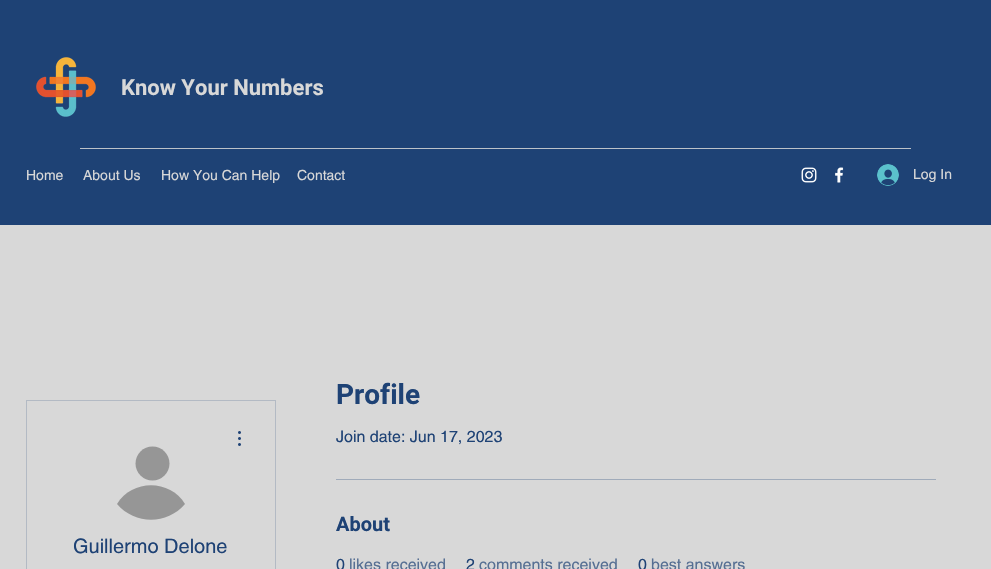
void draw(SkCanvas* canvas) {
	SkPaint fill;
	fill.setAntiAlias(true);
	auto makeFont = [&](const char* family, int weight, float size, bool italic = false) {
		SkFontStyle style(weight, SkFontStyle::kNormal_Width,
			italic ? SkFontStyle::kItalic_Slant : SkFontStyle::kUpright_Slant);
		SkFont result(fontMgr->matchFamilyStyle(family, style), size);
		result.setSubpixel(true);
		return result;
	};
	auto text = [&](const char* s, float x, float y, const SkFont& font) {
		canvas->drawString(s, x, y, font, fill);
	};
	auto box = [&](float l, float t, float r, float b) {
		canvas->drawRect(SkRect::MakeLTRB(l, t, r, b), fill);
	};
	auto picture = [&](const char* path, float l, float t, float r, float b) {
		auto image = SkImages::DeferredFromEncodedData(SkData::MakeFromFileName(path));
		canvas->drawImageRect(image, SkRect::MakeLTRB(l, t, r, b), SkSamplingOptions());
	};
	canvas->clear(0xFFD8D8D8);
	fill.setColor(0xFF1E4275);
	box(0, 0, 991, 225);
	picture("image0.png", 36, 57, 96, 117);
	fill.setColor(0xFFBCC2C9);
	box(80, 148, 911, 149);
	picture("image1.png", 801, 167, 817, 183);
	picture("image2.png", 835, 167, 844, 183);
	picture("image3.png", 877, 164, 899, 186);
	fill.setStyle(SkPaint::kStroke_Style);
	fill.setStrokeWidth(1);
	fill.setColor(0xFFB3BAC4);
	canvas->drawRect(SkRect::MakeLTRB(26.5f, 400.5f, 275.5f, 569.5f), fill);
	fill.setStyle(SkPaint::kFill_Style);
	fill.setColor(0xFF969696);
	canvas->drawCircle(152.5f, 463.5f, 17, fill);
	canvas->drawPath(SkPathBuilder().moveTo(185, 504).cubicTo(167, 525, 135, 525, 117, 504).cubicTo(132, 479, 170, 479, 185, 504).close().detach(), fill);
	picture("image4.png", 238, 431, 241, 446);
	fill.setColor(0xFFA0ABBA);
	box(336, 479, 936, 480);
	auto font1 = makeFont("Roboto", 700, 22);
	fill.setColor(0xFFD8D8D8);
	text("Know Your Numbers", 121, 95, font1);
	auto font2 = makeFont("helvetica", 400, 14);
	text("Home", 26, 180, font2);
	text("About Us", 83, 180, font2);
	text("How You Can Help", 161, 180, font2);
	text("Contact", 297, 180, font2);
	text("Log In", 913, 179, font2);
	auto font3 = makeFont("helvetica", 400, 20);
	fill.setColor(0xFF1E4275);
	text("Guillermo Delone", 73, 553, font3);
	auto font4 = makeFont("Roboto", 700, 28);
	text("Profile", 336, 404, font4);
	auto font5 = makeFont("helvetica", 400, 16);
	text("Join date: Jun 17, 2023", 336, 442, font5);
	auto font6 = makeFont("Roboto", 700, 20);
	text("About", 336, 531, font6);
	text("0", 336, 570, font5);
	fill.setColor(0xFF566F93);
	text("likes received", 349, 570, font5);
	fill.setColor(0xFF1E4275);
	text("2", 466, 570, font5);
	fill.setColor(0xFF566F93);
	text("comments received", 479, 570, font5);
	fill.setColor(0xFF1E4275);
	text("0", 638, 570, font5);
	fill.setColor(0xFF566F93);
	text("best answers", 651, 570, font5);
}
